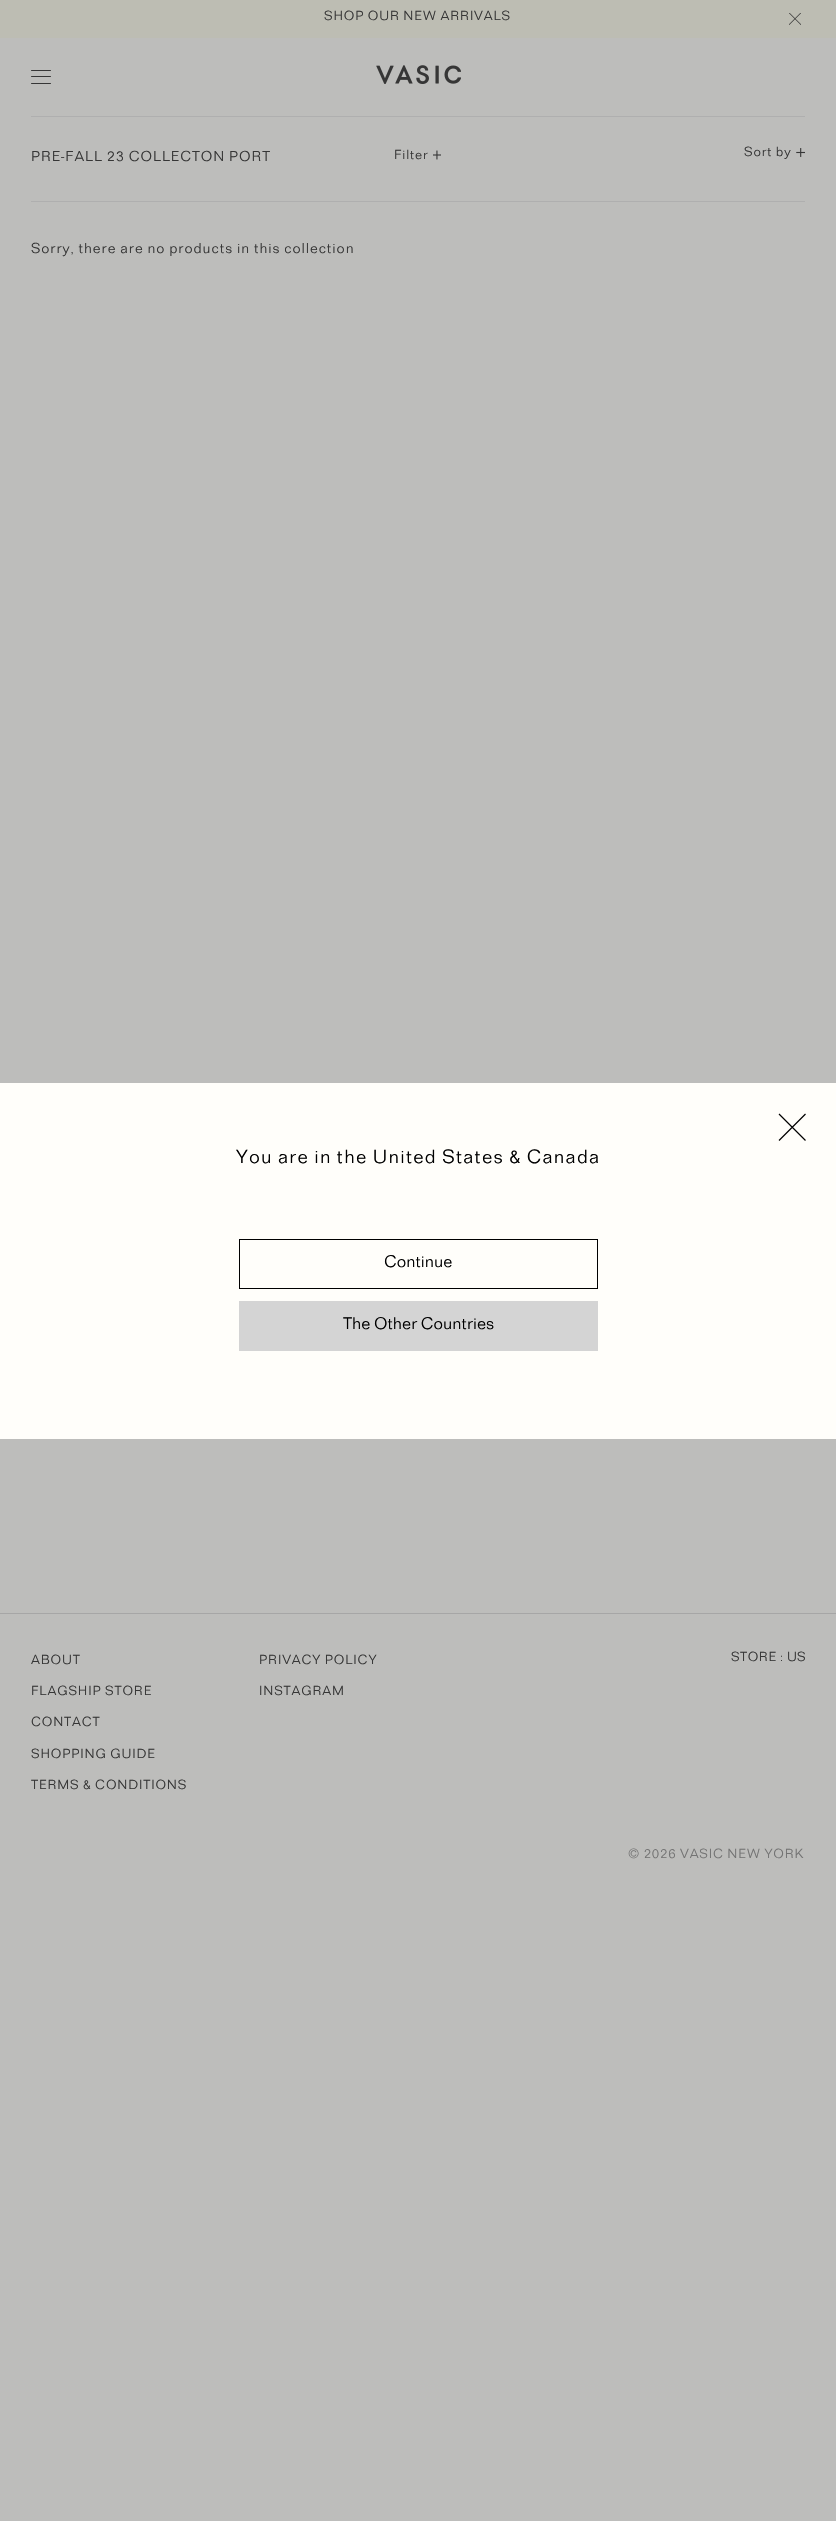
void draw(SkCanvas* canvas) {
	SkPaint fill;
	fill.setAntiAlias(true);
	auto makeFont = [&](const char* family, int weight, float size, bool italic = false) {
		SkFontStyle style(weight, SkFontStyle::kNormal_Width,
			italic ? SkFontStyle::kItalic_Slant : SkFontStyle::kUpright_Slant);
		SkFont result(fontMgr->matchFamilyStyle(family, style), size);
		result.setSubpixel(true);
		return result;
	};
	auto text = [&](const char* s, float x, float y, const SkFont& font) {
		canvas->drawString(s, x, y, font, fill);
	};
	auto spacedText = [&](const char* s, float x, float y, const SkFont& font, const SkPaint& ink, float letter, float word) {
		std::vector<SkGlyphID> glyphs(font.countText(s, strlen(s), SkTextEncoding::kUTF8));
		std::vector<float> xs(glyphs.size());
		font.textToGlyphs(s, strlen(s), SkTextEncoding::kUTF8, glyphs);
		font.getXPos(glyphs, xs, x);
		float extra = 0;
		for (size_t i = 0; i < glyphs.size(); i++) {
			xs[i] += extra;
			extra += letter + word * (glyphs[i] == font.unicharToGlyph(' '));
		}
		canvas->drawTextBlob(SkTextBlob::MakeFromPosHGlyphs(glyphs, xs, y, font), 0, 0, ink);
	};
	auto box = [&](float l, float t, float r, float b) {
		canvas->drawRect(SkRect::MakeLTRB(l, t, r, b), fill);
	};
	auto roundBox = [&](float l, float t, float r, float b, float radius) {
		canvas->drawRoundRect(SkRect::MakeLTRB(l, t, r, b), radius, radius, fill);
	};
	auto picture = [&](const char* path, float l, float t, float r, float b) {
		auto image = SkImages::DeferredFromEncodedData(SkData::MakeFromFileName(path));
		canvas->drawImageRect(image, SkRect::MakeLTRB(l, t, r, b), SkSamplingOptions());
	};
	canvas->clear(0xFFBDBDBB);
	fill.setColor(0xFFBDBDB3);
	box(0, 0, 836, 38);
	picture("image0.png", 789, 13, 801, 25);
	fill.setColor(0xFF363636);
	roundBox(31, 76, 51, 77, 0.5f);
	roundBox(31, 70, 51, 71, 0.5f);
	roundBox(31, 83, 51, 84, 0.5f);
	picture("image1.png", 376, 65, 461, 84);
	fill.setColor(0xFFAFAFAF);
	box(31, 116, 805, 117);
	box(31, 201, 805, 202);
	picture("image2.png", 433, 150, 441, 160);
	picture("image3.png", 796, 148, 805, 157);
	fill.setColor(0xFFFFFEFA);
	box(0, 1083, 836, 1439);
	fill.setStyle(SkPaint::kStroke_Style);
	fill.setStrokeWidth(1.2f);
	fill.setColor(0xFF000000);
	canvas->drawPath(SkPathBuilder().moveTo(779, 1114).lineTo(805.5f, 1140.5f).moveTo(805.5f, 1114).lineTo(779, 1140.5f).detach(), fill);
	fill.setStrokeWidth(1);
	canvas->drawRect(SkRect::MakeLTRB(239.5f, 1239.5f, 597.5f, 1288.5f), fill);
	fill.setStyle(SkPaint::kFill_Style);
	fill.setColor(0xFFD4D4D4);
	box(239, 1301, 598, 1351);
	fill.setColor(0xFFA6A6A6);
	box(0, 1613, 836, 1614);
	auto font1 = makeFont("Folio", 300, 13.75f);
	fill.setColor(0xFF363636);
	spacedText("SHOP OUR NEW ARRIVALS", 324, 20, font1, fill, 0.8f, 0);
	auto font2 = makeFont("Folio", 300, 15);
	spacedText("PRE-FALL 23 COLLECTON PORT", 31, 161, font2, fill, 0.9f, 0);
	spacedText("Filter", 394, 159, font1, fill, 0.8f, 0);
	spacedText("Sort by", 744, 156, font1, fill, 0.8f, 0);
	spacedText("Sorry, there are no products in this collection", 31, 253, font2, fill, 0.9f, 0);
	auto font3 = makeFont("Folio", 300, 20);
	fill.setColor(0xFF000000);
	spacedText("You are in the United States & Canada", 236, 1163, font3, fill, 1.2f, 0);
	auto font4 = makeFont("Folio", 300, 17.5f);
	text("Continue", 384, 1267, font4);
	text("The Other Countries", 343, 1329, font4);
	fill.setColor(0xFF363636);
	spacedText("ABOUT", 31, 1664, font1, fill, 0.8f, 0);
	spacedText("PRIVACY POLICY", 259, 1664, font1, fill, 0.8f, 0);
	spacedText("FLAGSHIP STORE", 31, 1695, font1, fill, 0.8f, 0);
	spacedText("INSTAGRAM", 259, 1695, font1, fill, 0.8f, 0);
	spacedText("CONTACT", 31, 1726, font1, fill, 0.8f, 0);
	spacedText("SHOPPING GUIDE", 31, 1758, font1, fill, 0.8f, 0);
	spacedText("TERMS & CONDITIONS", 31, 1789, font1, fill, 0.8f, 0);
	spacedText("STORE :", 731, 1661, font1, fill, 0.5f, 0);
	text("US", 787, 1661, font1);
	fill.setColor(0xFF737373);
	spacedText("© 2026 VASIC NEW YORK", 628, 1858, font1, fill, 0.8f, 0);
}
